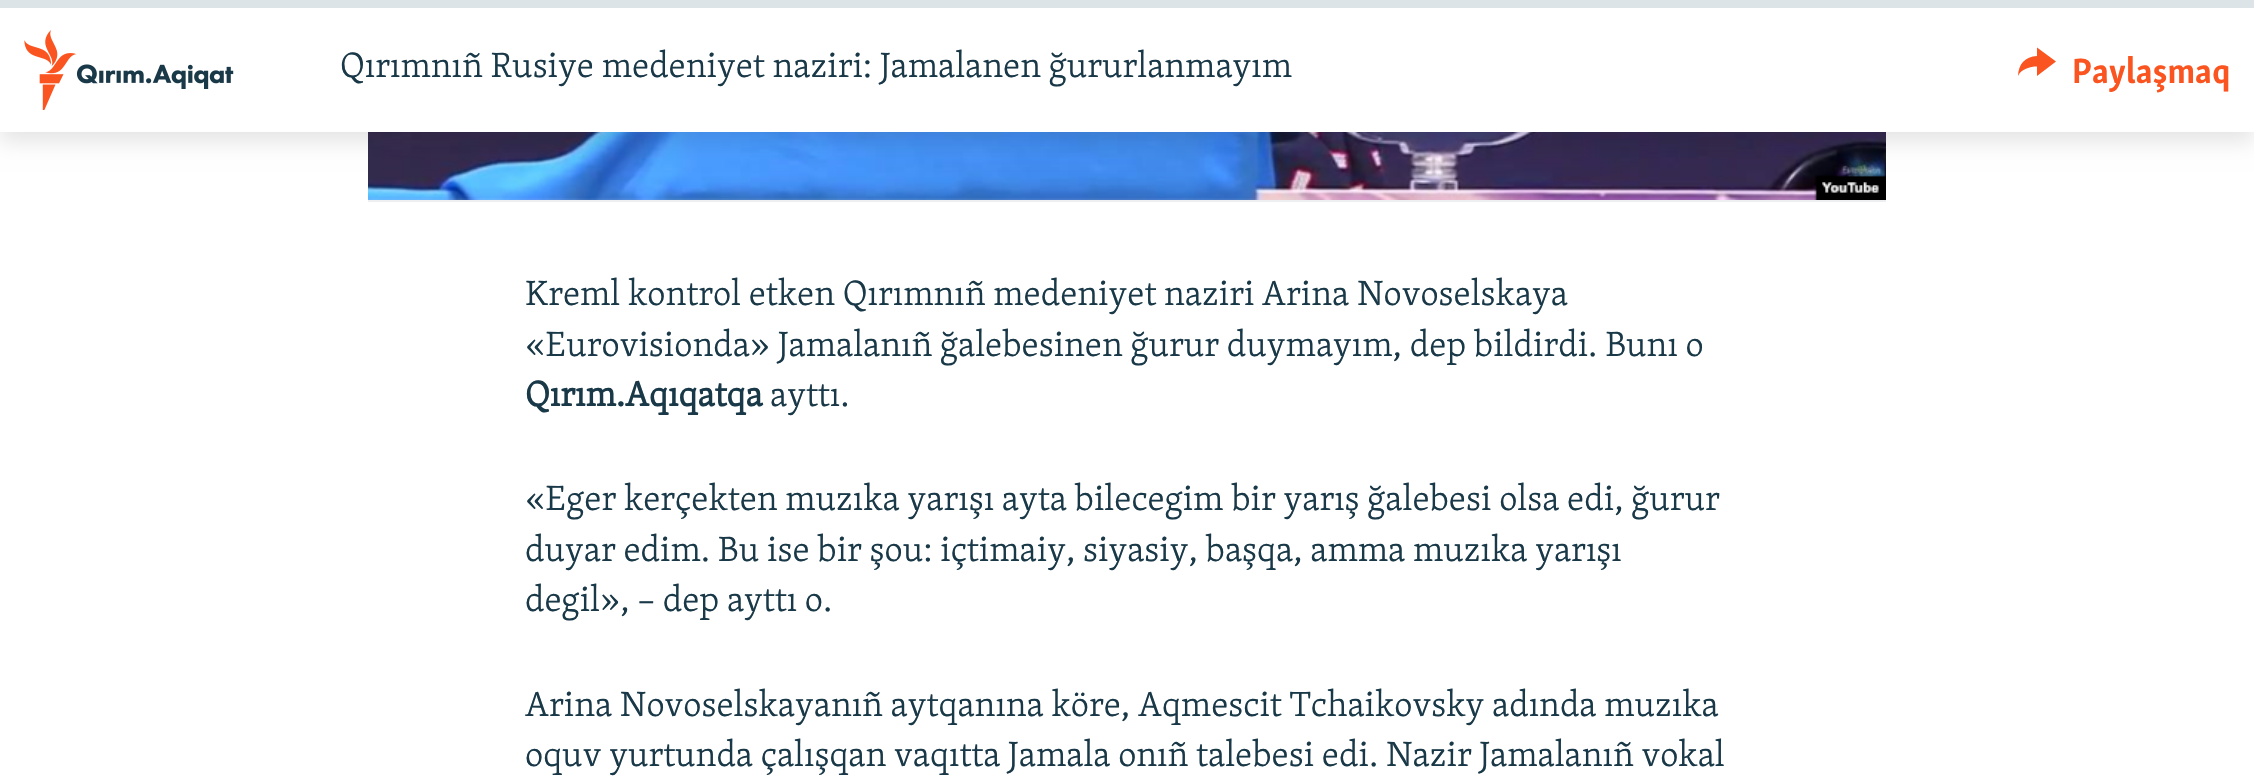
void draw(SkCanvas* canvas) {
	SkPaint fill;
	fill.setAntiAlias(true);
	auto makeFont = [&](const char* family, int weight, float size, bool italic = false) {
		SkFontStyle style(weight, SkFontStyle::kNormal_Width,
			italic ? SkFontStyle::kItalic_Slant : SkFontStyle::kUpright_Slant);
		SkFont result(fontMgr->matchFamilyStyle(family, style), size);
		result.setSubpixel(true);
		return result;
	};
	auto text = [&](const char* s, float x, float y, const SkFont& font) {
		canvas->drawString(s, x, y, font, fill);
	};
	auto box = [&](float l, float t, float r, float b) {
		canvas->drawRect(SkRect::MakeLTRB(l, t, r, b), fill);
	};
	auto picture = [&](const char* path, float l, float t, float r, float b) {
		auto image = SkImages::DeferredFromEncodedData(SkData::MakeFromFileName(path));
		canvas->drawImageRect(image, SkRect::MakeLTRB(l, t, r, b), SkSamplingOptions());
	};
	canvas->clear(0xFFFFFFFF);
	fill.setColor(0xFFEDEFF0);
	box(368, 198, 1886, 202);
	picture("image1.png", 368, 132, 1886, 200);
	fill.setColor(0x1A000000);
	fill.setMaskFilter(SkMaskFilter::MakeBlur(kNormal_SkBlurStyle, 10));
	canvas->drawRect(SkRect::MakeLTRB(0, 10, 2254, 142), fill);
	fill.setMaskFilter(nullptr);
	fill.setColor(0xFFFFFFFF);
	box(0, 8, 2254, 132);
	fill.setColor(0xFFDCE4E8);
	box(0, 0, 2254, 8);
	picture("image0.png", 24, 30, 234, 110);
	fill.setColor(0xFFFA5420);
	canvas->drawPath(SkPathBuilder().moveTo(2018, 76).cubicTo(2018.5f, 64, 2025, 56.5f, 2037, 56).lineTo(2037, 47.5f).lineTo(2056, 61.5f).lineTo(2037, 76).lineTo(2037, 66.5f).cubicTo(2030, 66.5f, 2021, 69, 2018, 76).close().detach(), fill);
	auto font1 = makeFont("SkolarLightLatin", 300, 36);
	fill.setColor(0xFF1A3948);
	text("Qırımnıñ Rusiye medeniyet naziri: Jamalanen ğururlanmayım", 340, 77, font1);
	auto font2 = makeFont("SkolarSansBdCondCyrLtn", 700, 36);
	fill.setColor(0xFFFA5420);
	text("Paylaşmaq", 2072, 83, font2);
	fill.setColor(0xFF1A3948);
	text("Kreml kontrol etken Qırımnıñ medeniyet naziri Arina Novoselskaya", 525, 305, font1);
	text("«Eurovisionda» Jamalanıñ ğalebesinen ğurur duymayım, dep bildirdi. Bunı o", 525, 356, font1);
	auto font3 = makeFont("SkolarLightLatin", 700, 36);
	text("Qırım.Aqıqatqa", 525, 406, font3);
	text("ayttı.", 770, 406, font1);
	text("«Eger kerçekten muzıka yarışı ayta bilecegim bir yarış ğalebesi olsa edi, ğurur", 525, 510, font1);
	text("duyar edim. Bu ise bir şou: içtimaiy, siyasiy, başqa, amma muzıka yarışı", 525, 561, font1);
	text("degil», – dep ayttı o.", 525, 611, font1);
	text("Arina Novoselskayanıñ aytqanına köre, Aqmescit Tchaikovsky adında muzıka", 525, 716, font1);
	text("oquv yurtunda çalışqan vaqıtta Jamala onıñ talebesi edi. Nazir Jamalanıñ vokal", 525, 766, font1);
}
